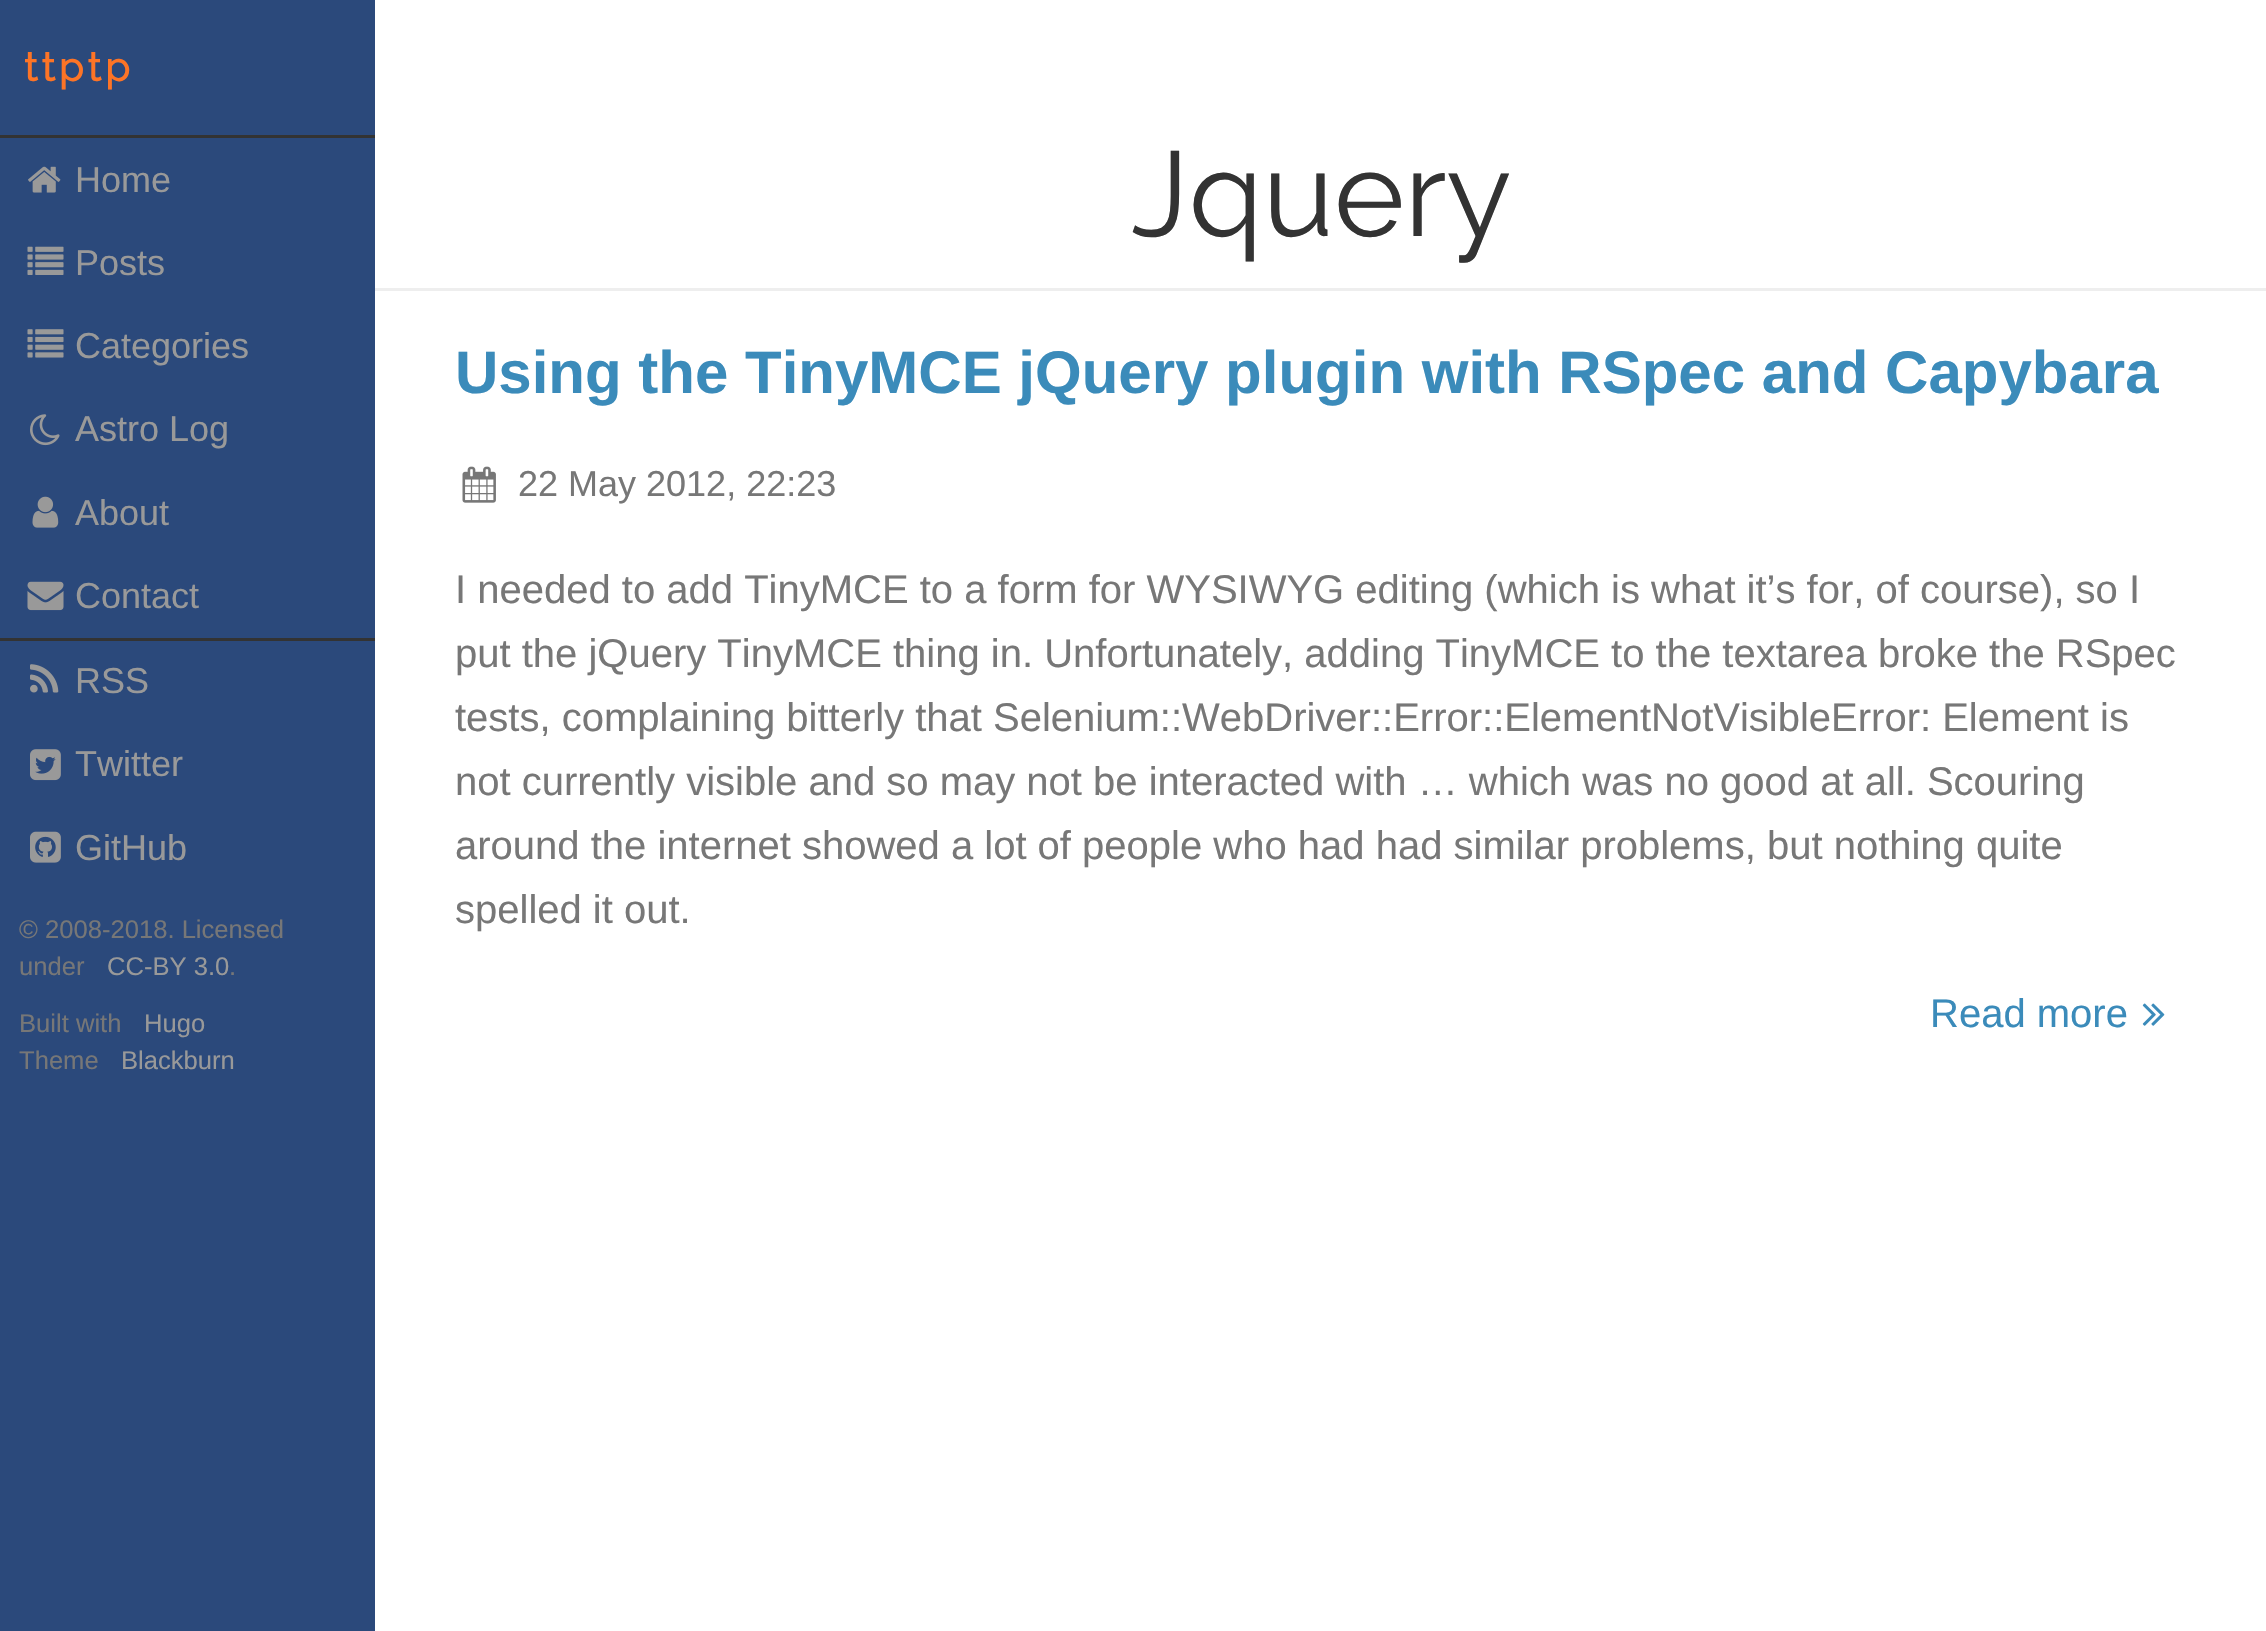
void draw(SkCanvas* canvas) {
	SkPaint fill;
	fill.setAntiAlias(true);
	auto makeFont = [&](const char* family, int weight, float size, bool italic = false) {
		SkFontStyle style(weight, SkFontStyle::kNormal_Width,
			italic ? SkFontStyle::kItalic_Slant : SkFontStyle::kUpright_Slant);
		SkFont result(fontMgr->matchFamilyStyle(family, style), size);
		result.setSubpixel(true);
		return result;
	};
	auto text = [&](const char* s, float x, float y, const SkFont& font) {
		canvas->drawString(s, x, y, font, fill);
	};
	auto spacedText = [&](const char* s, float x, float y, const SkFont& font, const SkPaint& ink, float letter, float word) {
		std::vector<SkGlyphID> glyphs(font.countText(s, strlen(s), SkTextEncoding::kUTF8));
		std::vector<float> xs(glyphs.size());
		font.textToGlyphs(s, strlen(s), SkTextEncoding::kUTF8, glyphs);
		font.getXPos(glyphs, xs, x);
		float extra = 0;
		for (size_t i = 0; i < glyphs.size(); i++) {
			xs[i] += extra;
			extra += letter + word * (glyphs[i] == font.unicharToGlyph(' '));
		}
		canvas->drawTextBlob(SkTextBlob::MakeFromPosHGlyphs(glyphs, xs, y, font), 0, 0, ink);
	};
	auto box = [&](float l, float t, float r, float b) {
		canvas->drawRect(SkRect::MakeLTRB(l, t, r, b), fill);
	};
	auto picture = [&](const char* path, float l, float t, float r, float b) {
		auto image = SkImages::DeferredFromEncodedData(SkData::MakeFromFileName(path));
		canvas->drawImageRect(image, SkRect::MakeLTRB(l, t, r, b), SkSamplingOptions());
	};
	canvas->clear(0xFFFFFFFF);
	fill.setColor(0xFF2B497B);
	box(0, 0, 375, 1631);
	fill.setColor(0xFF333333);
	box(0, 135, 375, 138);
	picture("image0.png", 28, 166, 61, 193);
	picture("image1.png", 27, 246, 64, 275);
	picture("image2.png", 27, 329, 64, 358);
	picture("image3.png", 30, 414, 60, 446);
	picture("image4.png", 32, 496, 59, 528);
	picture("image5.png", 27, 581, 64, 611);
	box(0, 638, 375, 641);
	picture("image6.png", 30, 664, 59, 693);
	picture("image7.png", 30, 749, 61, 781);
	picture("image8.png", 30, 831, 61, 863);
	fill.setColor(0xFFEEEEEE);
	box(375, 288, 2266, 291);
	picture("image9.png", 462, 466, 496, 503);
	picture("image10.png", 2142, 1003, 2165, 1026);
	auto font1 = makeFont("Raleway", 700, 40);
	fill.setColor(0xFFFD7426);
	spacedText("ttptp", 24, 81, font1, fill, 4, 0);
	auto font2 = makeFont("Liberation Sans", 400, 36);
	fill.setColor(0xFF999999);
	text("Home", 75, 192, font2);
	text("Posts", 75, 275, font2);
	text("Categories", 75, 358, font2);
	text("Astro Log", 75, 441, font2);
	text("About", 75, 525, font2);
	text("Contact", 75, 608, font2);
	text("RSS", 75, 693, font2);
	text("Twitter", 75, 776, font2);
	text("GitHub", 75, 860, font2);
	auto font3 = makeFont("Liberation Sans", 400, 25.6f);
	fill.setColor(0xFF777777);
	text("© 2008-2018. Licensed", 19, 938, font3);
	text("under", 19, 975, font3);
	fill.setColor(0xFF999999);
	text("CC-BY 3.0", 107, 975, font3);
	fill.setColor(0xFF777777);
	text(".", 229, 975, font3);
	text("Built with", 19, 1032, font3);
	fill.setColor(0xFF999999);
	text("Hugo", 144, 1032, font3);
	fill.setColor(0xFF777777);
	text("Theme", 19, 1069, font3);
	fill.setColor(0xFF999999);
	text("Blackburn", 121, 1069, font3);
	auto font4 = makeFont("Raleway", 100, 120);
	fill.setColor(0xFF333333);
	text("Jquery", 1131, 236, font4);
	auto font5 = makeFont("Liberation Sans", 700, 60);
	fill.setColor(0xFF3B8BBA);
	text("Using the TinyMCE jQuery plugin with RSpec and Capybara", 455, 393, font5);
	fill.setColor(0xFF777777);
	text("22 May 2012, 22:23", 518, 496, font2);
	auto font6 = makeFont("Liberation Sans", 400, 40);
	text("I needed to add TinyMCE to a form for WYSIWYG editing (which is what it’s for, of course), so I", 455, 603, font6);
	text("put the jQuery TinyMCE thing in. Unfortunately, adding TinyMCE to the textarea broke the RSpec", 455, 667, font6);
	text("tests, complaining bitterly that Selenium::WebDriver::Error::ElementNotVisibleError: Element is", 455, 731, font6);
	text("not currently visible and so may not be interacted with … which was no good at all. Scouring", 455, 795, font6);
	text("around the internet showed a lot of people who had had similar problems, but nothing quite", 455, 859, font6);
	text("spelled it out.", 455, 923, font6);
	fill.setColor(0xFF3B8BBA);
	text("Read more", 1930, 1027, font6);
}
